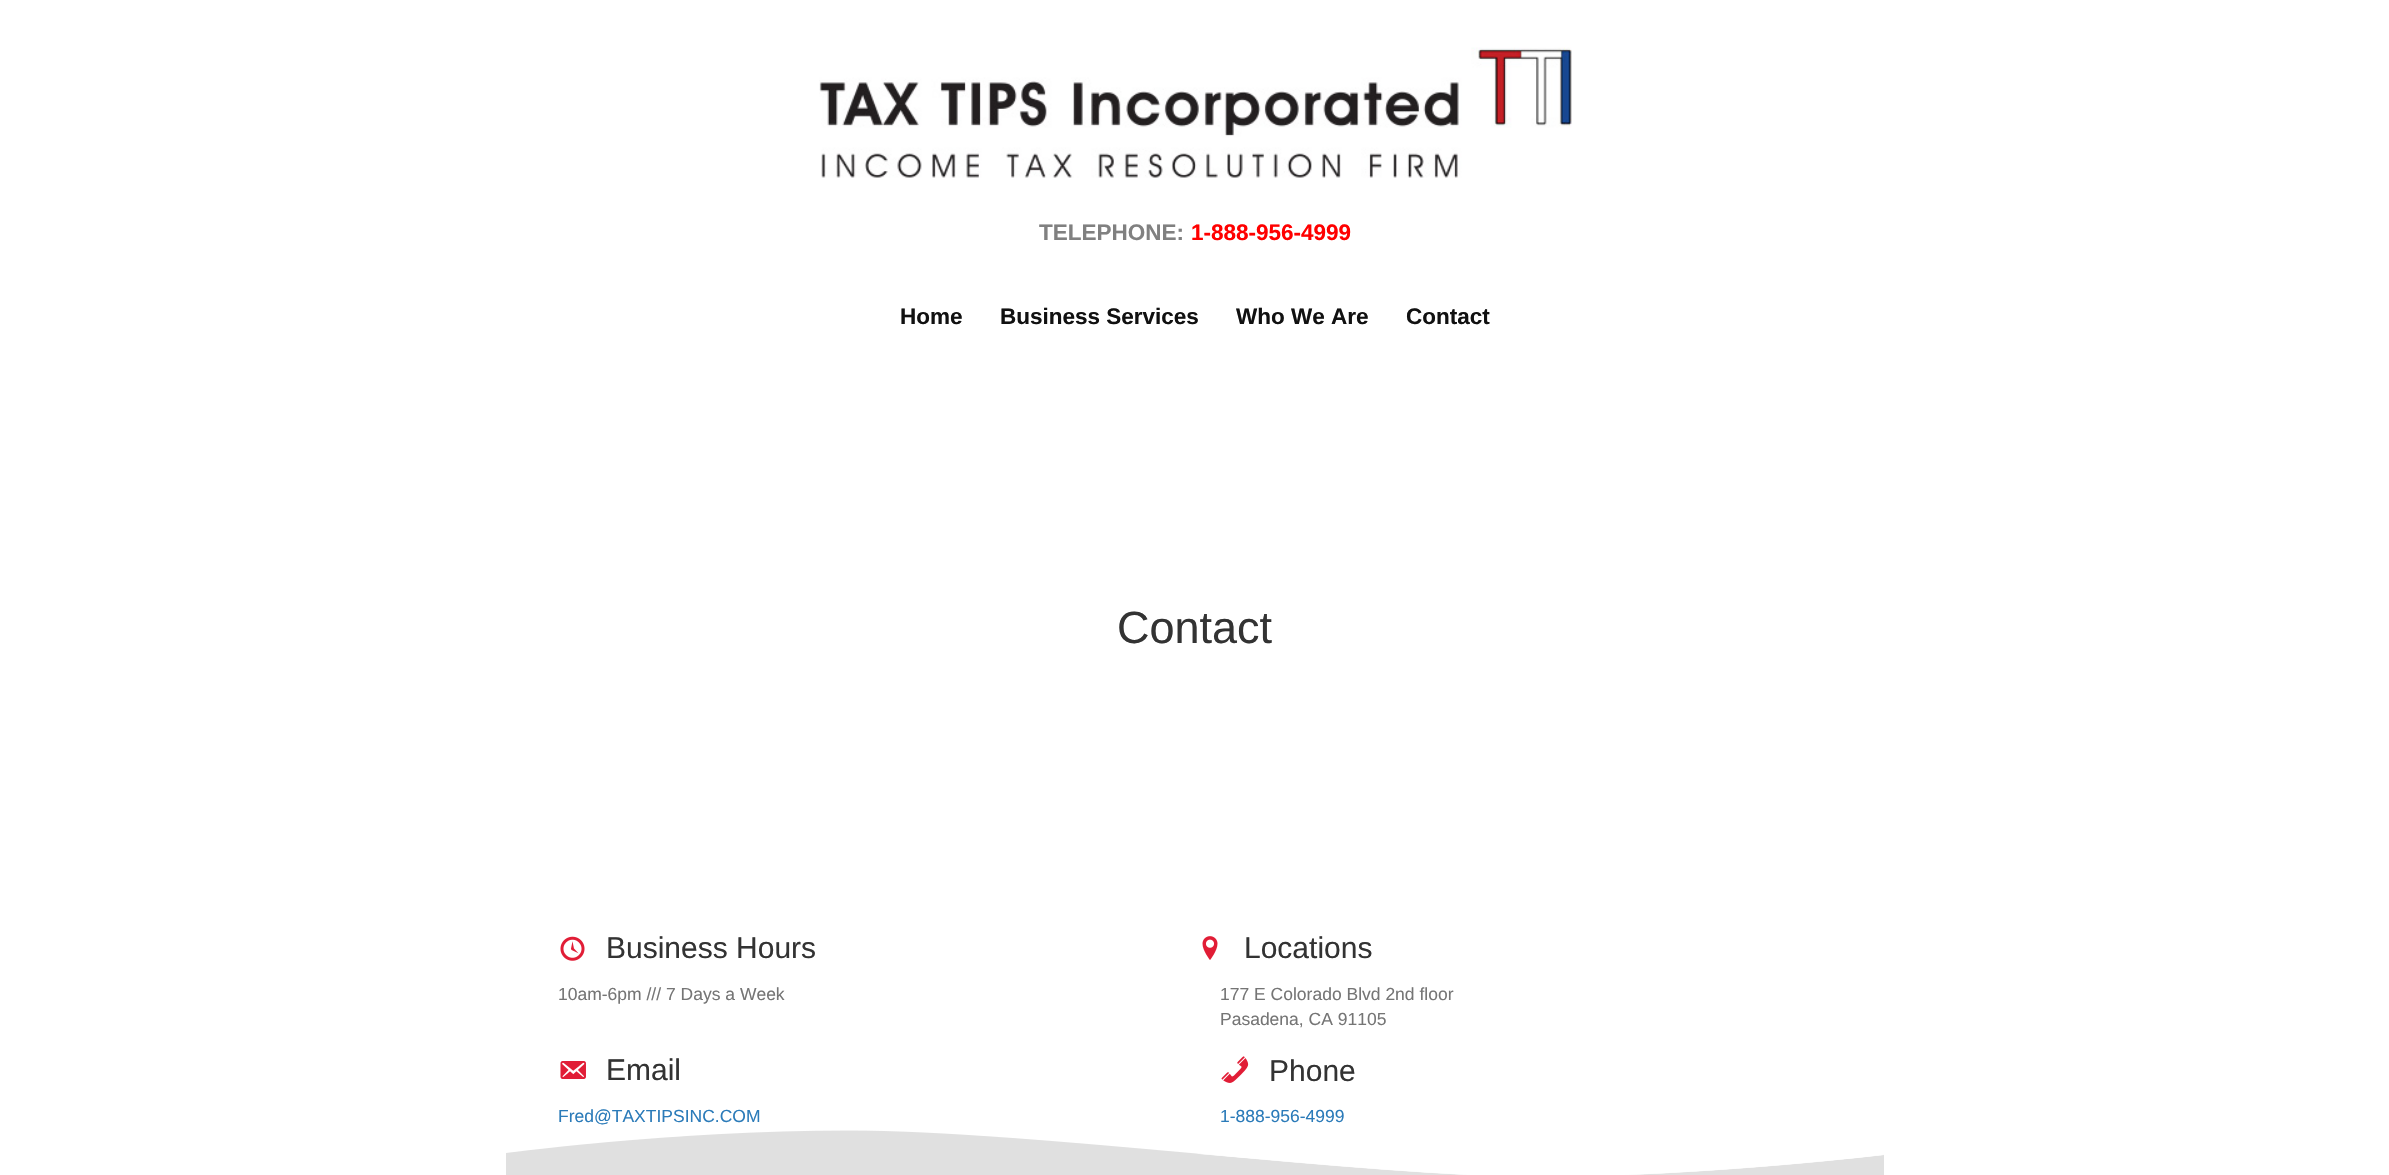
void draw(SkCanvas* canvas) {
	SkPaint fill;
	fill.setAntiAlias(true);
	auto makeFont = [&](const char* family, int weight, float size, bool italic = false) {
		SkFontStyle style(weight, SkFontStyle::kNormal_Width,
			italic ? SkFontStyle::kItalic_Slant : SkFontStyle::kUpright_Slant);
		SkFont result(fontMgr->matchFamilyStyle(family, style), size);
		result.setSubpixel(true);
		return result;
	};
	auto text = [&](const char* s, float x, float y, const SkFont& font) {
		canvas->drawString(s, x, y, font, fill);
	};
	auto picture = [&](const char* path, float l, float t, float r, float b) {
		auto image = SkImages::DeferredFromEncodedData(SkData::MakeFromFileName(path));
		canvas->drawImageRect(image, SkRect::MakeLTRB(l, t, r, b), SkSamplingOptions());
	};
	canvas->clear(0xFFFFFFFF);
	picture("image0.png", 819, 47, 1572, 178);
	picture("image1.png", 560, 936, 585, 961);
	picture("image2.png", 560, 1061, 586, 1079);
	picture("image3.png", 1202, 936, 1218, 960);
	picture("image4.png", 1221, 1056, 1249, 1083);
	picture("image5.png", 506, 1130, 1884, 1175);
	auto font1 = makeFont("Liberation Sans", 700, 22.5f);
	fill.setColor(0xFF808080);
	text("TELEPHONE:", 1039, 240, font1);
	fill.setColor(0xFFFF0000);
	text("1-888-956-4999", 1191, 240, font1);
	fill.setColor(0xFF111111);
	text("Home", 900, 324, font1);
	text("Business Services", 1000, 324, font1);
	text("Who We Are", 1236, 324, font1);
	text("Contact", 1406, 324, font1);
	auto font2 = makeFont("Liberation Sans", 400, 45);
	fill.setColor(0xFF333333);
	text("Contact", 1117, 643, font2);
	auto font3 = makeFont("Liberation Sans", 400, 30);
	text("Business Hours", 606, 958, font3);
	auto font4 = makeFont("Liberation Sans", 400, 17.5f);
	fill.setColor(0xFF757575);
	text("10am-6pm /// 7 Days a Week", 558, 1000, font4);
	fill.setColor(0xFF333333);
	text("Email", 606, 1080, font3);
	fill.setColor(0xFF2B7BB9);
	text("Fred@TAXTIPSINC.COM", 558, 1122, font4);
	fill.setColor(0xFF333333);
	text("Locations", 1244, 958, font3);
	fill.setColor(0xFF757575);
	text("177 E Colorado Blvd 2nd floor", 1220, 1000, font4);
	text("Pasadena, CA 91105", 1220, 1025, font4);
	fill.setColor(0xFF333333);
	text("Phone", 1269, 1081, font3);
	fill.setColor(0xFF2B7BB9);
	text("1-888-956-4999", 1220, 1122, font4);
}
